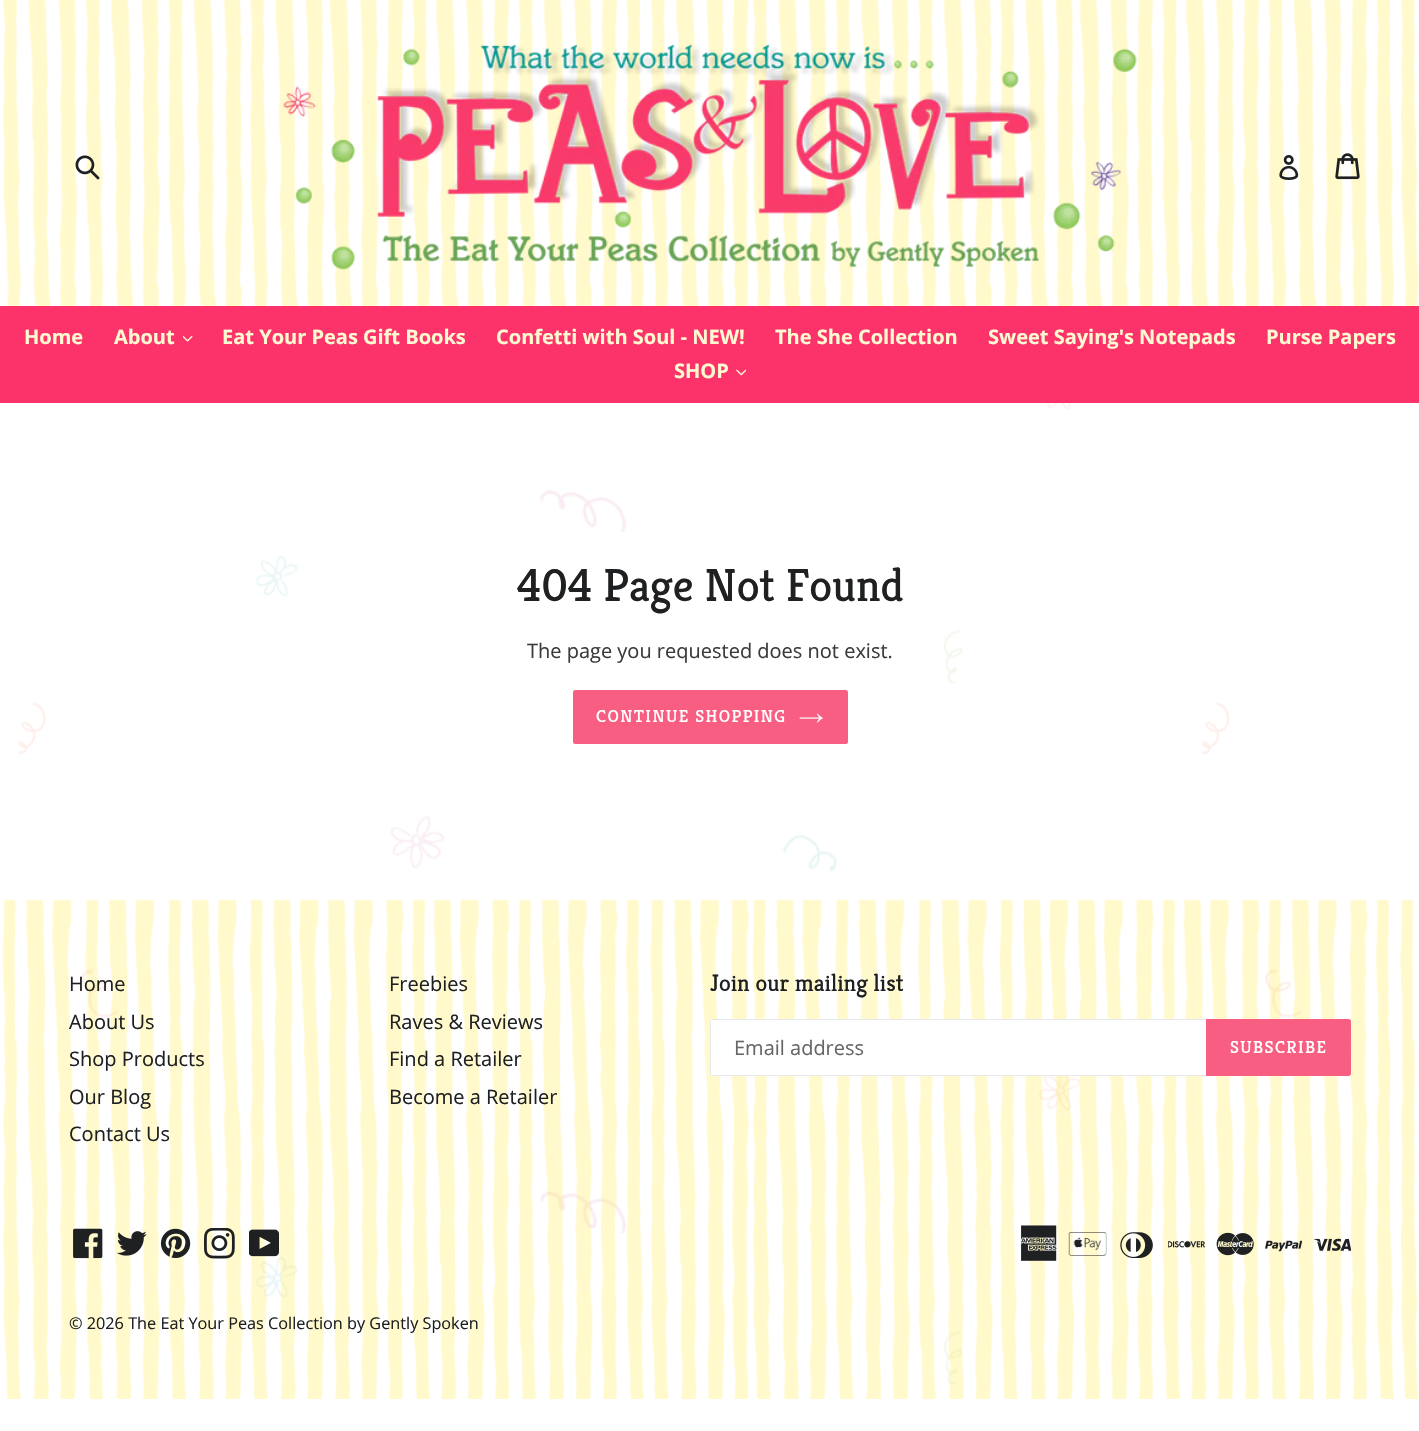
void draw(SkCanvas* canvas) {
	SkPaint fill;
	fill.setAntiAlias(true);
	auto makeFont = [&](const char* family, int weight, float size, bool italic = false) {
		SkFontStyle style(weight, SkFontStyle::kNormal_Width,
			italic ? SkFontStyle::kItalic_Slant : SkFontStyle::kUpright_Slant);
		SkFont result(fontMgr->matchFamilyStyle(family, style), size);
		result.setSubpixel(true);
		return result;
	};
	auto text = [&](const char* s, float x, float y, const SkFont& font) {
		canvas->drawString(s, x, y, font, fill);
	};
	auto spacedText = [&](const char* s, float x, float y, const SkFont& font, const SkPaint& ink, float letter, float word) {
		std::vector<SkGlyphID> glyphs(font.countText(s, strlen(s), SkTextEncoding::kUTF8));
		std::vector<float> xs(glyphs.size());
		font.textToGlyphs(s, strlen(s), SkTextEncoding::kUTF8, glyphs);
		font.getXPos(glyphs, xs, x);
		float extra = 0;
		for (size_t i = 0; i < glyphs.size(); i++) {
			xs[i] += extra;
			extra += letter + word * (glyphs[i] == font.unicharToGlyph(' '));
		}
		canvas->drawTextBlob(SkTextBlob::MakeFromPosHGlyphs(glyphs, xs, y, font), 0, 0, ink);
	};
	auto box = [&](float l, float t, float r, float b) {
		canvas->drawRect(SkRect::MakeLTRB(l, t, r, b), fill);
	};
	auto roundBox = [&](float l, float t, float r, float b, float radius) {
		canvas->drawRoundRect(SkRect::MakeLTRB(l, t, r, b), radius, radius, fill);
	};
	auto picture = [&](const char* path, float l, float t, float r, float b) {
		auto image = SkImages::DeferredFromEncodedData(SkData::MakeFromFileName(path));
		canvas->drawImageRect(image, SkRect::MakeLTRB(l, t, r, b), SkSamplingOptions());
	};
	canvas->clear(0xFFFFFFFF);
	picture("image0.png", 2, 0, 1419, 306);
	picture("image1.png", 75, 155, 100, 180);
	picture("image2.png", 283, 44, 1137, 270);
	picture("image3.png", 1279, 155, 1299, 180);
	picture("image4.png", 1335, 153, 1360, 180);
	fill.setColor(0xFFFC326A);
	box(0, 306, 1419, 403);
	picture("image5.png", 183, 335, 193, 342);
	picture("image6.png", 736, 369, 746, 376);
	picture("image7.png", 18, 402, 1302, 1385);
	fill.setColor(0xFFF75E82);
	roundBox(573, 690, 848, 744, 2.5f);
	picture("image8.png", 799, 713, 823, 723);
	picture("image9.png", 2, 899, 1419, 1399);
	fill.setColor(0xFFFFFFFF);
	canvas->drawPath(SkPathBuilder().moveTo(712.5f, 1019).lineTo(1206, 1019).lineTo(1206, 1076).lineTo(712.5f, 1076).cubicTo(711, 1076, 710, 1075, 710, 1073.5f).lineTo(710, 1021.5f).cubicTo(710, 1020, 711, 1019, 712.5f, 1019).close().detach(), fill);
	fill.setColor(0xFFE8E9EB);
	box(711, 1019, 1206, 1020);
	box(711, 1075, 1206, 1076);
	box(710, 1020, 711, 1075);
	fill.setColor(0xFFF75E82);
	canvas->drawPath(SkPathBuilder().moveTo(1206, 1019).lineTo(1348.5f, 1019).cubicTo(1350, 1019, 1351, 1020, 1351, 1021.5f).lineTo(1351, 1073.5f).cubicTo(1351, 1075, 1350, 1076, 1348.5f, 1076).lineTo(1206, 1076).close().detach(), fill);
	picture("image10.png", 73, 1228, 103, 1259);
	picture("image11.png", 117, 1231, 147, 1256);
	picture("image12.png", 160, 1228, 191, 1258);
	picture("image13.png", 204, 1228, 235, 1259);
	picture("image14.png", 249, 1229, 279, 1257);
	picture("image15.png", 1021, 1225, 1057, 1261);
	picture("image16.png", 1068, 1232, 1107, 1256);
	picture("image17.png", 1120, 1232, 1153, 1258);
	picture("image18.png", 1168, 1241, 1205, 1248);
	picture("image19.png", 1216, 1232, 1254, 1256);
	picture("image20.png", 1265, 1240, 1303, 1252);
	picture("image21.png", 1314, 1238, 1351, 1251);
	auto font1 = makeFont("Open Sans", 700, 20);
	fill.setColor(0xFFFFF9D2);
	text("Home", 24, 344, font1);
	text("About", 114, 344, font1);
	text("Eat Your Peas Gift Books", 222, 344, font1);
	text("Confetti with Soul - NEW!", 496, 344, font1);
	text("The She Collection", 775, 344, font1);
	text("Sweet Saying's Notepads", 988, 344, font1);
	text("Purse Papers", 1266, 344, font1);
	text("SHOP", 674, 378, font1);
	auto font2 = makeFont("Kreon", 300, 46.25f);
	fill.setColor(0xFF1E2021);
	text("404 Page Not Found", 517, 601, font2);
	auto font3 = makeFont("Open Sans", 400, 20);
	fill.setColor(0xFF3B3B3B);
	text("The page you requested does not exist.", 527, 658, font3);
	auto font4 = makeFont("Kreon", 300, 17.5f);
	fill.setColor(0xFFFFFFFF);
	spacedText("CONTINUE SHOPPING", 596, 722, font4, fill, 1.4f, 0);
	fill.setColor(0xFF1E2021);
	text("Home", 69, 991, font3);
	text("About Us", 69, 1029, font3);
	text("Shop Products", 69, 1066, font3);
	text("Our Blog", 69, 1104, font3);
	text("Contact Us", 69, 1141, font3);
	text("Freebies", 389, 991, font3);
	text("Raves & Reviews", 389, 1029, font3);
	text("Find a Retailer", 389, 1066, font3);
	text("Become a Retailer", 389, 1104, font3);
	auto font5 = makeFont("Kreon", 300, 23.75f);
	text("Join our mailing list", 710, 991, font5);
	fill.setColor(0xFF666666);
	text("Email address", 734, 1055, font3);
	fill.setColor(0xFFFFFFFF);
	spacedText("SUBSCRIBE", 1230, 1053, font4, fill, 1.4f, 0);
	auto font6 = makeFont("Open Sans", 400, 16.25f);
	fill.setColor(0xFF1E2021);
	text("© 2026 The Eat Your Peas Collection by Gently Spoken", 69, 1329, font6);
}
